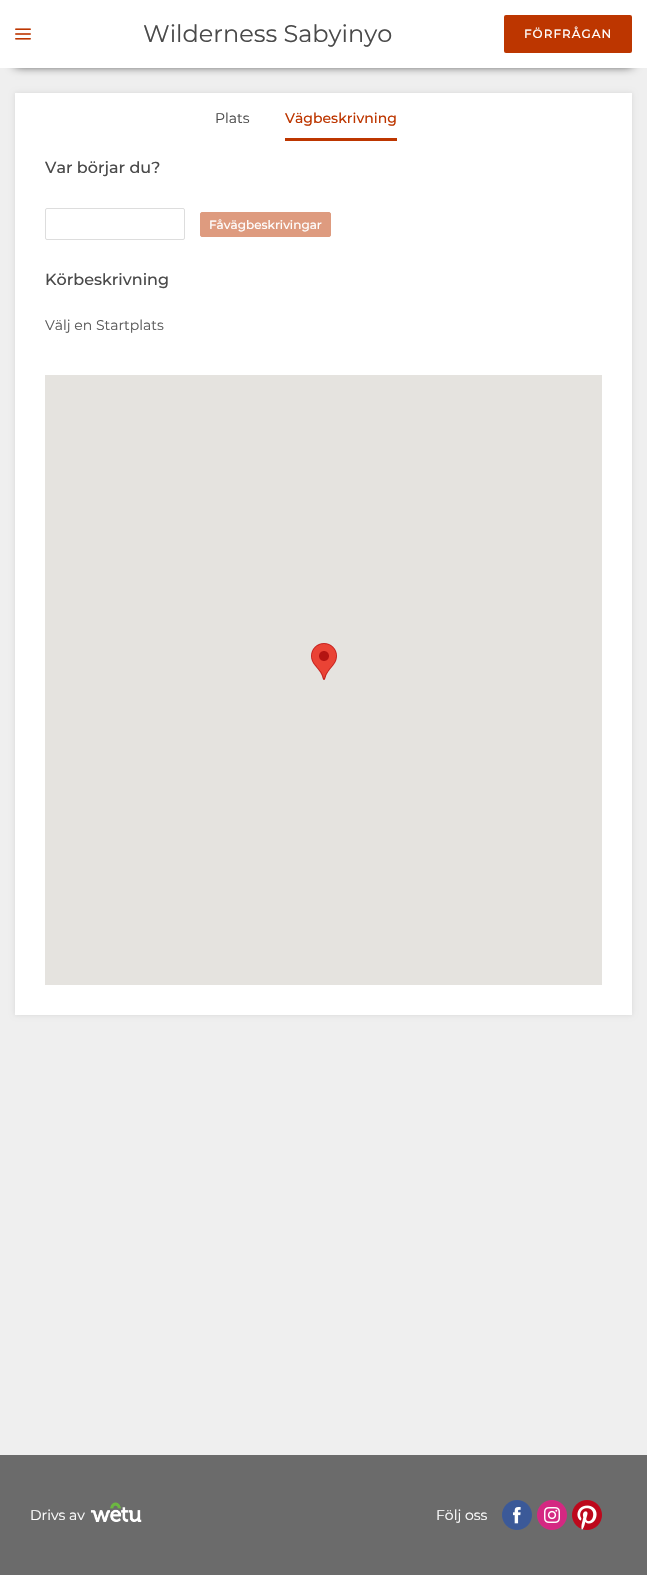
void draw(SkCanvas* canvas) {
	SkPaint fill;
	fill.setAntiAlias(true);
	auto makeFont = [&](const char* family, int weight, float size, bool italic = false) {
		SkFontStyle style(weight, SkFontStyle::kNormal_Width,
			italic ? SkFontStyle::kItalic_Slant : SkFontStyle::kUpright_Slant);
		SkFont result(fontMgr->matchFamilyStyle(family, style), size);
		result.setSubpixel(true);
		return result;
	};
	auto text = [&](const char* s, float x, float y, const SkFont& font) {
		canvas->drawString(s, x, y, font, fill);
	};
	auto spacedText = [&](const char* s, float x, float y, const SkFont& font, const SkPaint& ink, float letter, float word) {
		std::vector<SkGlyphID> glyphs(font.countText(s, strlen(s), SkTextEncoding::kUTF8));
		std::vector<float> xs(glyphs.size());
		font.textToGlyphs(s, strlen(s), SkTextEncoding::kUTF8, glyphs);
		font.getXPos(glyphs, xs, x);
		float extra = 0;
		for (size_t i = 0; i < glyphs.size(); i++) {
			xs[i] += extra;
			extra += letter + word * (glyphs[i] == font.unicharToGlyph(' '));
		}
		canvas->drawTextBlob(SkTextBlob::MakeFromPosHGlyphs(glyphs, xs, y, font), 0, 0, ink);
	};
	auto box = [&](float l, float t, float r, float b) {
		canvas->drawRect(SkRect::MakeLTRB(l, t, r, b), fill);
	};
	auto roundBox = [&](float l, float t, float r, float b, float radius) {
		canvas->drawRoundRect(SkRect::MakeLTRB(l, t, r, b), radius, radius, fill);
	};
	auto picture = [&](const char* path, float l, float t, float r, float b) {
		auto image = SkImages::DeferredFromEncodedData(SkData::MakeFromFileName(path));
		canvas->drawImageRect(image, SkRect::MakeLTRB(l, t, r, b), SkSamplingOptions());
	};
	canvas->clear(0xFFEFEFEF);
	fill.setColor(0xFF000000);
	fill.setMaskFilter(SkMaskFilter::MakeBlur(kNormal_SkBlurStyle, 5));
	canvas->drawRect(SkRect::MakeLTRB(15, 27, 632, 65), fill);
	fill.setMaskFilter(nullptr);
	fill.setColor(0xFFFFFFFF);
	box(0, 0, 647, 68);
	picture("image0.png", 15, 28, 31, 40);
	fill.setColor(0xFFBD3600);
	roundBox(504, 15, 632, 53, 2);
	fill.setColor(0x1A000000);
	fill.setMaskFilter(SkMaskFilter::MakeBlur(kNormal_SkBlurStyle, 2.5f));
	canvas->drawRect(SkRect::MakeLTRB(15, 93, 632, 1015), fill);
	fill.setMaskFilter(nullptr);
	fill.setColor(0xFFFFFFFF);
	box(15, 93, 632, 1015);
	fill.setColor(0xFFBD3600);
	box(285, 138, 397, 141);
	fill.setStyle(SkPaint::kStroke_Style);
	fill.setStrokeWidth(1);
	fill.setColor(0xFFDDDDDD);
	canvas->drawRoundRect(SkRect::MakeLTRB(45.5f, 208.5f, 184.5f, 239.5f), 1.5f, 1.5f, fill);
	fill.setStyle(SkPaint::kFill_Style);
	fill.setColor(0xFFDE9B7F);
	canvas->drawRoundRect(SkRect::MakeLTRB(200.5f, 212.5f, 330.5f, 236.5f), 1.5f, 1.5f, fill);
	fill.setStyle(SkPaint::kStroke_Style);
	canvas->drawRoundRect(SkRect::MakeLTRB(200.5f, 212.5f, 330.5f, 236.5f), 1.5f, 1.5f, fill);
	fill.setStyle(SkPaint::kFill_Style);
	fill.setColor(0xFFE5E3DF);
	box(45, 375, 602, 985);
	picture("image1.png", 311, 643, 337, 680);
	fill.setColor(0xFF6B6B6B);
	box(0, 1455, 647, 1575);
	picture("image2.png", 90, 1502, 142, 1522);
	picture("image3.png", 502, 1500, 532, 1530);
	picture("image4.png", 537, 1500, 567, 1530);
	picture("image5.png", 572, 1500, 602, 1530);
	auto font1 = makeFont("Montserrat", 400, 24);
	fill.setColor(0xFF4A4A4A);
	text("Wilderness Sabyinyo", 143, 42, font1);
	auto font2 = makeFont("Montserrat", 500, 12);
	fill.setColor(0xFFFFFFFF);
	spacedText("FÖRFRÅGAN", 524, 38, font2, fill, 1, 0);
	auto font3 = makeFont("Montserrat", 400, 14);
	fill.setColor(0xFF4A4A4A);
	text("Plats", 215, 123, font3);
	auto font4 = makeFont("Montserrat", 500, 14);
	fill.setColor(0xFFBD3600);
	text("Vägbeskrivning", 285, 123, font4);
	auto font5 = makeFont("Montserrat", 500, 16);
	fill.setColor(0xFF4A4A4A);
	text("Var börjar du?", 45, 173, font5);
	fill.setColor(0xFFFFFFFF);
	text("Fåvägbeskrivingar", 209, 229, font2);
	fill.setColor(0xFF4A4A4A);
	text("Körbeskrivning", 45, 285, font5);
	fill.setColor(0xFF5A5A5A);
	text("Välj en Startplats", 45, 330, font3);
	fill.setColor(0xFFFFFFFF);
	text("Drivs av", 30, 1520, font3);
	text("Följ oss", 436, 1520, font3);
}
